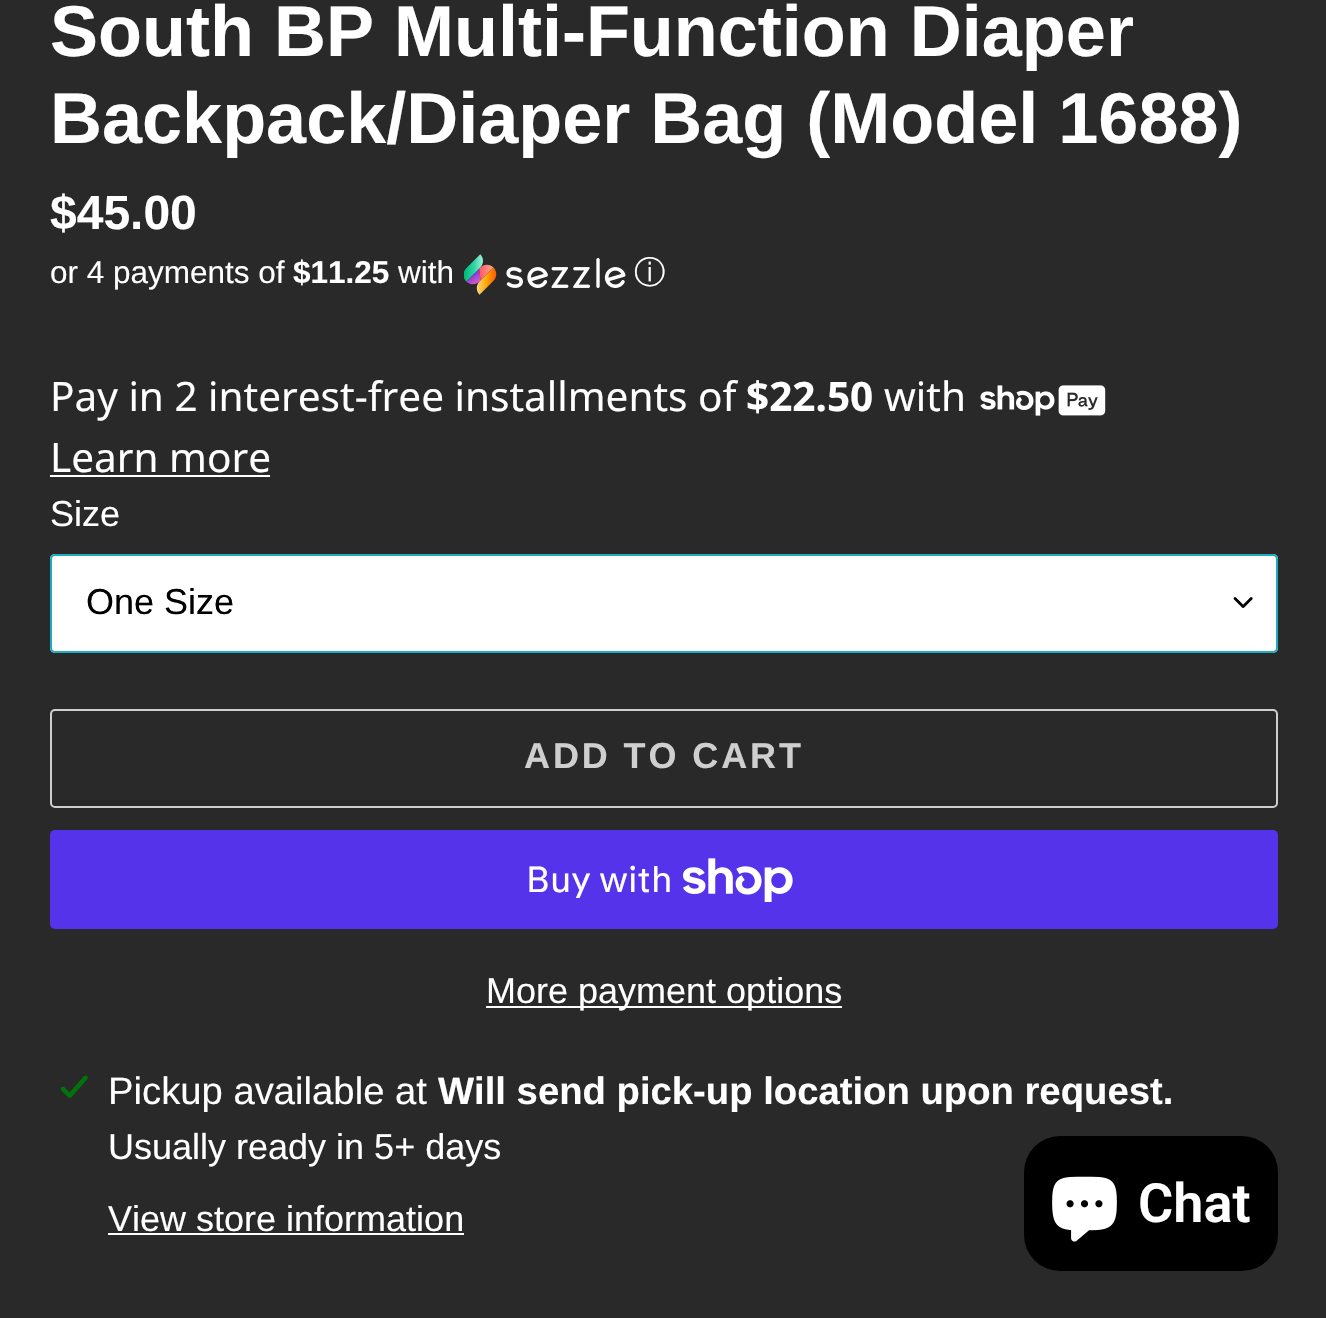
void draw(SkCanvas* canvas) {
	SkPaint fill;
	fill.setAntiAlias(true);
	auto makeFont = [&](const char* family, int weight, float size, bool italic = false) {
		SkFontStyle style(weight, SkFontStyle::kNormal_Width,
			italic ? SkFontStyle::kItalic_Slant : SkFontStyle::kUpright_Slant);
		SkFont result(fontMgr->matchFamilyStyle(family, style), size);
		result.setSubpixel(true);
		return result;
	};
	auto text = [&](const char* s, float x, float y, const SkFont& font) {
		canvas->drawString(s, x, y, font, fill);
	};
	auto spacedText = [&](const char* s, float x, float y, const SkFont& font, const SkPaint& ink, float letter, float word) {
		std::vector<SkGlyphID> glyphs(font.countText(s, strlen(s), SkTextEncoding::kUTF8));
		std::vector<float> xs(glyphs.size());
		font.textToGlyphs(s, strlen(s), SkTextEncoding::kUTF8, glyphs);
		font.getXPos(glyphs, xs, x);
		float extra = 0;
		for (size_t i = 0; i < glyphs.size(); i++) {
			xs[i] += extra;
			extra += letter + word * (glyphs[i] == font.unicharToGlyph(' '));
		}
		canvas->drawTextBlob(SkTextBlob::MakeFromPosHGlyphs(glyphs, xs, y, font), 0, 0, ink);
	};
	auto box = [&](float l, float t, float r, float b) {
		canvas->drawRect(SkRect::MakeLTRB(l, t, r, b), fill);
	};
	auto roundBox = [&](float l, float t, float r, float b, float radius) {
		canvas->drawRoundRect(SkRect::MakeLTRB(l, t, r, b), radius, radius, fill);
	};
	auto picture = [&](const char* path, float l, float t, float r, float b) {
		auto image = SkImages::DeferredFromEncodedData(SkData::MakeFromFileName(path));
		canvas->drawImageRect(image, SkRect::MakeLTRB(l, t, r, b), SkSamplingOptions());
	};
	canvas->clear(0xFF292929);
	picture("image0.png", 464, 254, 626, 295);
	picture("image1.png", 980, 385, 1106, 416);
	fill.setColor(0xFFFFFFFF);
	box(50, 475, 270, 477);
	roundBox(50, 554, 1278, 653, 5);
	picture("image2.png", 1233, 597, 1253, 608);
	fill.setStyle(SkPaint::kStroke_Style);
	fill.setStrokeWidth(2);
	fill.setColor(0xFF1DADC0);
	canvas->drawRoundRect(SkRect::MakeLTRB(51, 555, 1277, 652), 4, 4, fill);
	fill.setColor(0xFFCFCFCF);
	canvas->drawRoundRect(SkRect::MakeLTRB(51, 710, 1277, 807), 4, 4, fill);
	fill.setStyle(SkPaint::kFill_Style);
	fill.setColor(0xFF5433EB);
	roundBox(50, 830, 1278, 929, 5);
	picture("image3.png", 683, 858, 793, 902);
	fill.setColor(0xFFFFFFFF);
	box(486, 1006, 842, 1008);
	picture("image4.png", 61, 1075, 88, 1098);
	box(108, 1233, 464, 1235);
	fill.setColor(0xFF000000);
	roundBox(1024, 1136, 1278, 1271, 36);
	picture("image5.png", 1052, 1176, 1117, 1242);
	auto font1 = makeFont("Liberation Sans", 700, 72);
	fill.setColor(0xFFFFFFFF);
	text("South BP Multi-Function Diaper", 50, 56, font1);
	text("Backpack/Diaper Bag (Model 1688)", 50, 143, font1);
	auto font2 = makeFont("Liberation Sans", 700, 48);
	text("$45.00", 50, 229, font2);
	auto font3 = makeFont("Liberation Sans", 400, 31.5f);
	text("or 4 payments of", 50, 283, font3);
	auto font4 = makeFont("Liberation Sans", 700, 31.5f);
	text("$11.25", 293, 283, font4);
	text("with", 398, 283, font3);
	auto font5 = makeFont("WenQuanYi Zen Hei", 500, 31.5f);
	text("ⓘ", 634, 283, font5);
	auto font6 = makeFont("Noto Sans", 400, 40.5f);
	text("Pay in 2 interest-free installments of", 50, 411, font6);
	auto font7 = makeFont("Noto Sans", 700, 40.5f);
	text("$22.50", 746, 411, font7);
	text("with", 884, 411, font6);
	text("Learn more", 50, 472, font6);
	auto font8 = makeFont("Liberation Sans", 400, 36);
	text("Size", 50, 526, font8);
	fill.setColor(0xFF000000);
	text("One Size", 86, 614, font8);
	auto font9 = makeFont("Liberation Sans", 700, 36);
	fill.setColor(0xFFCFCFCF);
	spacedText("ADD TO CART", 524, 768, font9, fill, 2.9f, 0);
	auto font10 = makeFont("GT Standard", 400, 36);
	fill.setColor(0xFFFFFFFF);
	text("Buy with", 526, 892, font10);
	text("More payment options", 486, 1003, font8);
	auto font11 = makeFont("Liberation Sans", 400, 38.25f);
	text("Pickup available at", 108, 1104, font11);
	auto font12 = makeFont("Liberation Sans", 700, 38.25f);
	text("Will send pick-up location upon request.", 438, 1104, font12);
	text("Usually ready in 5+ days", 108, 1159, font8);
	text("View store information", 108, 1231, font8);
	auto font13 = makeFont("Roboto", 600, 54);
	text("Chat", 1138, 1222, font13);
}
